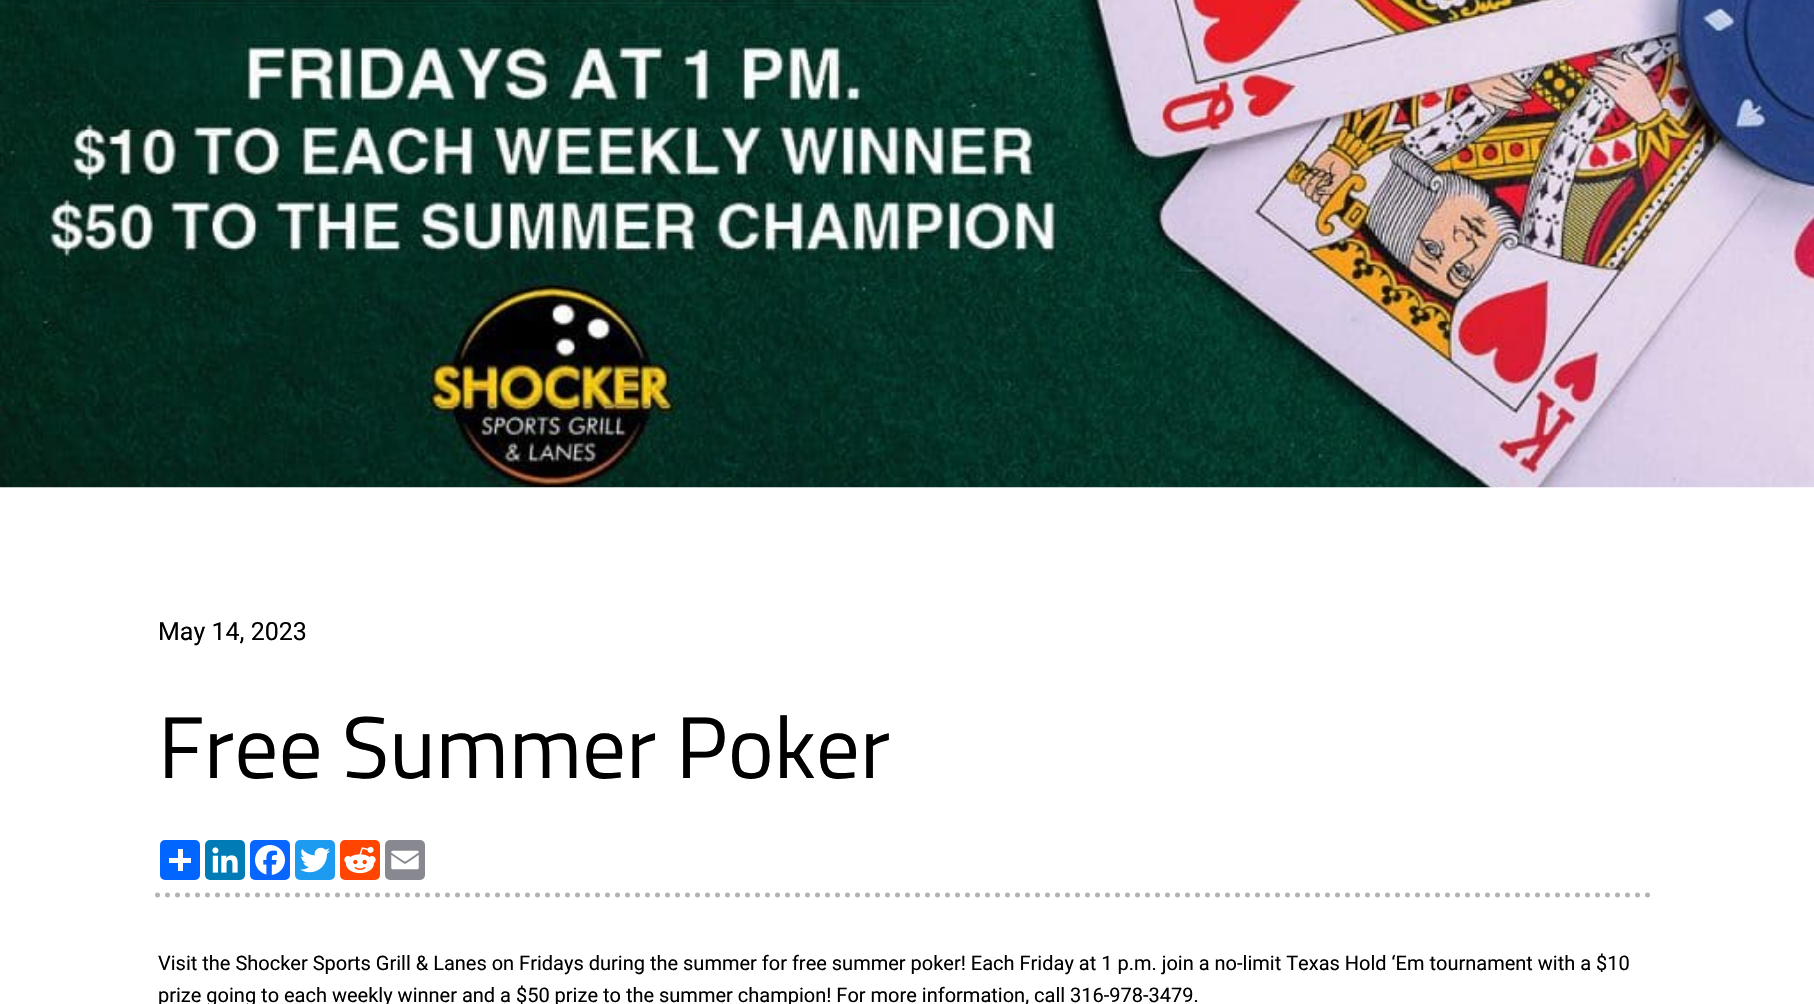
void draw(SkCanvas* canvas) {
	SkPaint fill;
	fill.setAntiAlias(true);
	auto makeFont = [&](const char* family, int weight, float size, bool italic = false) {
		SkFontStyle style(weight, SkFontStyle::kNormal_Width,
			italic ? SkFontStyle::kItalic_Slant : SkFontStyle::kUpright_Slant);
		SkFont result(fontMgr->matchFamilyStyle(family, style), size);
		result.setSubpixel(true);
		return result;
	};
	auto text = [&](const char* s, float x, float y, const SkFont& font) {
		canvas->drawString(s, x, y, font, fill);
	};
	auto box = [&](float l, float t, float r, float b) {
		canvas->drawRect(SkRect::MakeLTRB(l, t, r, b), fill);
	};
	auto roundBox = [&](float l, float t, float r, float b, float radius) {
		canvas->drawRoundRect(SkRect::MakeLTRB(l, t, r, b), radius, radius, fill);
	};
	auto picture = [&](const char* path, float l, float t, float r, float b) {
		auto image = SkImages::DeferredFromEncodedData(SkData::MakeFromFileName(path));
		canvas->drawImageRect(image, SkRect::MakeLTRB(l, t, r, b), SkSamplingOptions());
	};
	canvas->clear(0xFFFFFFFF);
	picture("image0.png", 0, 0, 1814, 488);
	fill.setStyle(SkPaint::kStroke_Style);
	fill.setStrokeWidth(5);
	fill.setStrokeCap(SkPaint::kRound_Cap);
	fill.setColor(0xFFB3B3B3);
	fill.setPathEffect(SkDashPathEffect::Make({{0, 10}}, 0));
	canvas->drawPath(SkPathBuilder().moveTo(157.5f, 895).lineTo(1657.5f, 895).detach(), fill);
	fill.setPathEffect(nullptr);
	fill.setStyle(SkPaint::kFill_Style);
	fill.setColor(0xFF0166FF);
	roundBox(160, 840, 200, 880, 5);
	fill.setColor(0xFFFFFFFF);
	box(178, 849, 183, 871);
	box(169, 858, 191, 863);
	fill.setColor(0xFF007BB5);
	roundBox(205, 840, 245, 880, 5);
	picture("image1.png", 212, 847, 238, 873);
	fill.setColor(0xFF0866FF);
	roundBox(250, 840, 290, 880, 5);
	picture("image2.png", 255, 845, 285, 875);
	fill.setColor(0xFF1D9BF0);
	roundBox(295, 840, 335, 880, 5);
	picture("image3.png", 300, 847, 330, 873);
	fill.setColor(0xFFFF4500);
	roundBox(340, 840, 380, 880, 5);
	picture("image4.png", 344, 846, 376, 874);
	fill.setColor(0xFF888990);
	roundBox(385, 840, 425, 880, 5);
	picture("image5.png", 391, 850, 419, 870);
	auto font1 = makeFont("Roboto", 400, 25);
	fill.setColor(0xFF000000);
	text("May 14, 2023", 158, 640, font1);
	auto font2 = makeFont("Titillium Web", 400, 87.5f);
	text("Free Summer Poker", 158, 778, font2);
	auto font3 = makeFont("Roboto", 400, 20);
	text("Visit the Shocker Sports Grill & Lanes on Fridays during the summer for free summer poker! Each Friday at 1 p.m. join a no-limit Texas Hold ‘Em tournament with a $10", 158, 970, font3);
	text("prize going to each weekly winner and a $50 prize to the summer champion! For more information, call 316-978-3479.", 158, 1002, font3);
}
